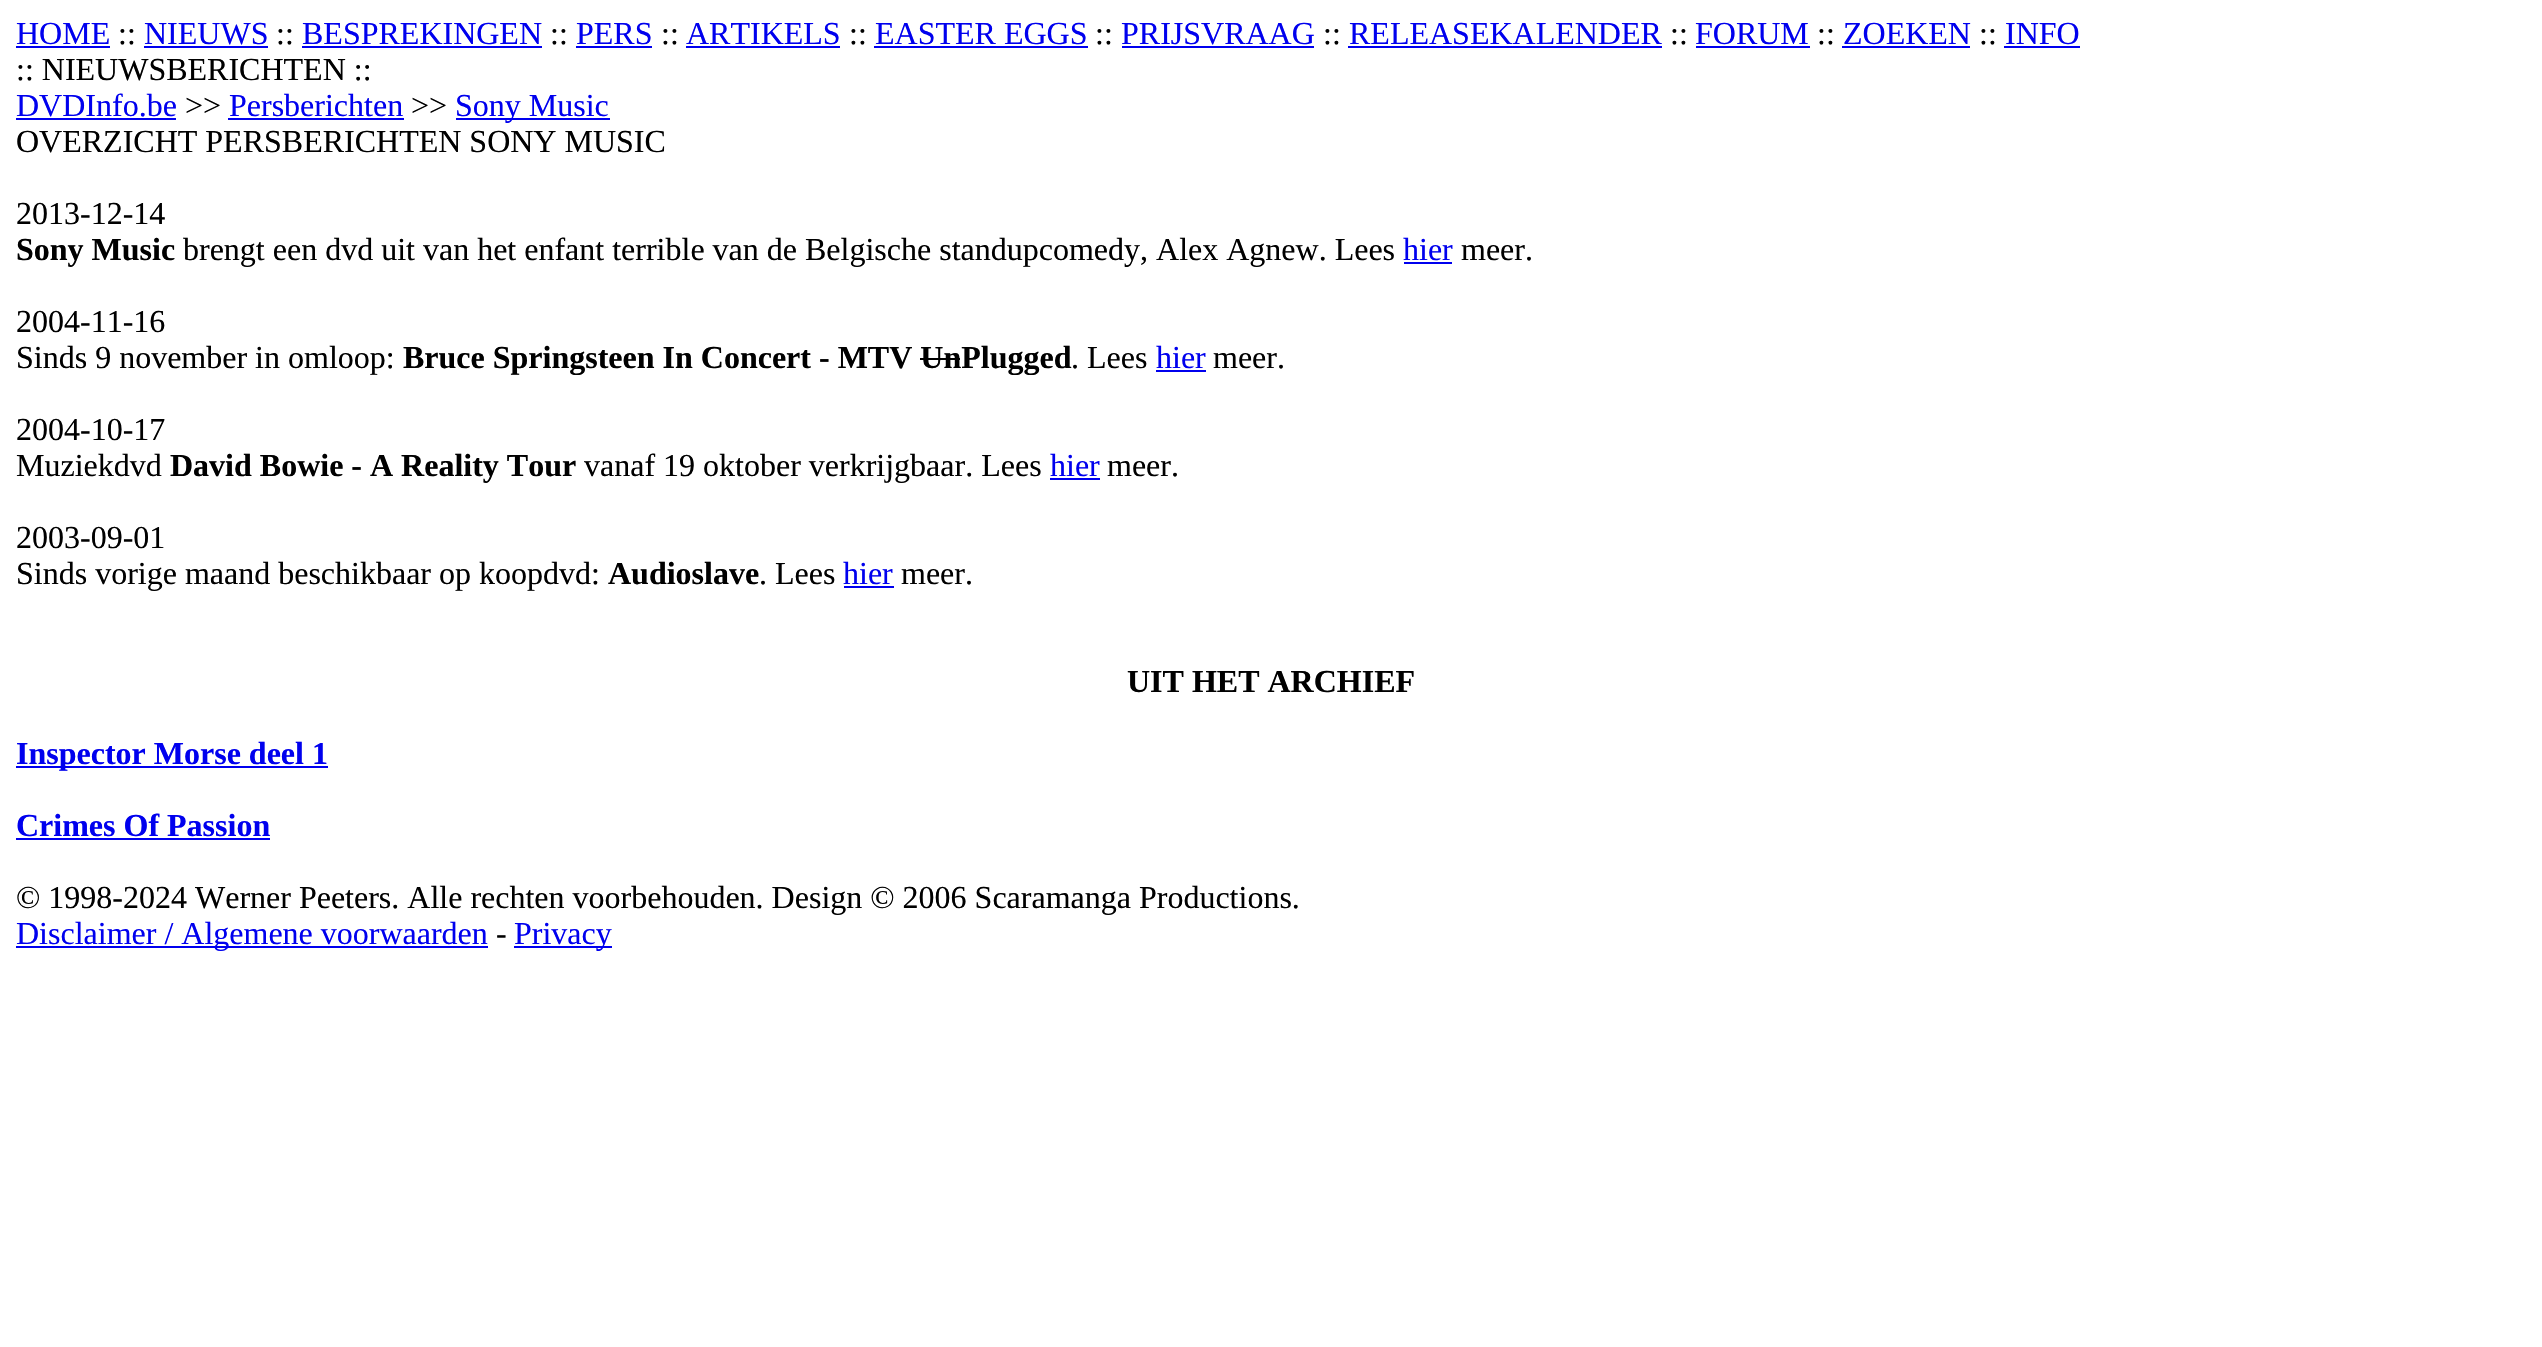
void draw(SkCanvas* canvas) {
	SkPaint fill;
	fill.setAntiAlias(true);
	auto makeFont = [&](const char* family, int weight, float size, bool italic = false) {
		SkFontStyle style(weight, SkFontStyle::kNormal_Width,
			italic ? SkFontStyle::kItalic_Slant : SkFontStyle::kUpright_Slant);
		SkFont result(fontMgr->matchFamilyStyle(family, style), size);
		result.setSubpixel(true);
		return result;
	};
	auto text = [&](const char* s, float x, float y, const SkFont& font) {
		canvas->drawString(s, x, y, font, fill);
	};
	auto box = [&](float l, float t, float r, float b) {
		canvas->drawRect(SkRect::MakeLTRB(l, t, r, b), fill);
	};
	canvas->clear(0xFFFFFFFF);
	fill.setColor(0xFF0000EE);
	box(16, 46, 110, 48);
	box(144, 46, 268, 48);
	box(302, 46, 542, 48);
	box(576, 46, 652, 48);
	box(686, 46, 840, 48);
	box(874, 46, 1088, 48);
	box(1122, 46, 1314, 48);
	box(1348, 46, 1662, 48);
	box(1696, 46, 1810, 48);
	box(1842, 46, 1970, 48);
	box(2004, 46, 2080, 48);
	box(16, 118, 176, 120);
	box(228, 118, 404, 120);
	box(456, 118, 610, 120);
	box(1404, 262, 1452, 264);
	fill.setColor(0xFF000000);
	box(920, 358, 960, 360);
	fill.setColor(0xFF0000EE);
	box(1156, 370, 1206, 372);
	box(1050, 478, 1100, 480);
	box(844, 586, 894, 588);
	box(16, 766, 328, 768);
	box(16, 838, 270, 840);
	box(16, 946, 488, 948);
	box(514, 946, 612, 948);
	auto font1 = makeFont("Liberation Serif", 400, 32);
	text("HOME", 16, 44, font1);
	fill.setColor(0xFF000000);
	text("::", 118, 44, font1);
	fill.setColor(0xFF0000EE);
	text("NIEUWS", 144, 44, font1);
	fill.setColor(0xFF000000);
	text("::", 276, 44, font1);
	fill.setColor(0xFF0000EE);
	text("BESPREKINGEN", 302, 44, font1);
	fill.setColor(0xFF000000);
	text("::", 550, 44, font1);
	fill.setColor(0xFF0000EE);
	text("PERS", 576, 44, font1);
	fill.setColor(0xFF000000);
	text("::", 661, 44, font1);
	fill.setColor(0xFF0000EE);
	text("ARTIKELS", 686, 44, font1);
	fill.setColor(0xFF000000);
	text("::", 849, 44, font1);
	fill.setColor(0xFF0000EE);
	text("EASTER EGGS", 875, 44, font1);
	fill.setColor(0xFF000000);
	text("::", 1095, 44, font1);
	fill.setColor(0xFF0000EE);
	text("PRIJSVRAAG", 1121, 44, font1);
	fill.setColor(0xFF000000);
	text("::", 1323, 44, font1);
	fill.setColor(0xFF0000EE);
	text("RELEASEKALENDER", 1349, 44, font1);
	fill.setColor(0xFF000000);
	text("::", 1670, 44, font1);
	fill.setColor(0xFF0000EE);
	text("FORUM", 1695, 44, font1);
	fill.setColor(0xFF000000);
	text("::", 1817, 44, font1);
	fill.setColor(0xFF0000EE);
	text("ZOEKEN", 1843, 44, font1);
	fill.setColor(0xFF000000);
	text("::", 1979, 44, font1);
	fill.setColor(0xFF0000EE);
	text("INFO", 2005, 44, font1);
	fill.setColor(0xFF000000);
	text(":: NIEUWSBERICHTEN ::", 16, 80, font1);
	fill.setColor(0xFF0000EE);
	text("DVDInfo.be", 16, 116, font1);
	fill.setColor(0xFF000000);
	text(">>", 185, 116, font1);
	fill.setColor(0xFF0000EE);
	text("Persberichten", 229, 116, font1);
	fill.setColor(0xFF000000);
	text(">>", 411, 116, font1);
	fill.setColor(0xFF0000EE);
	text("Sony Music", 455, 116, font1);
	fill.setColor(0xFF000000);
	text("OVERZICHT PERSBERICHTEN SONY MUSIC", 16, 152, font1);
	text("2013-12-14", 16, 224, font1);
	auto font2 = makeFont("Liberation Serif", 700, 32);
	text("Sony Music", 16, 260, font2);
	text("brengt een dvd uit van het enfant terrible van de Belgische standupcomedy, Alex Agnew. Lees", 183, 260, font1);
	fill.setColor(0xFF0000EE);
	text("hier", 1403, 260, font1);
	fill.setColor(0xFF000000);
	text("meer.", 1461, 260, font1);
	text("2004-11-16", 16, 332, font1);
	text("Sinds 9 november in omloop:", 16, 368, font1);
	text("Bruce Springsteen In Concert - MTV UnPlugged", 403, 368, font2);
	text(". Lees", 1071, 368, font1);
	fill.setColor(0xFF0000EE);
	text("hier", 1156, 368, font1);
	fill.setColor(0xFF000000);
	text("meer.", 1213, 368, font1);
	text("2004-10-17", 16, 440, font1);
	text("Muziekdvd", 16, 476, font1);
	text("David Bowie - A Reality Tour", 170, 476, font2);
	text("vanaf 19 oktober verkrijgbaar. Lees", 584, 476, font1);
	fill.setColor(0xFF0000EE);
	text("hier", 1050, 476, font1);
	fill.setColor(0xFF000000);
	text("meer.", 1107, 476, font1);
	text("2003-09-01", 16, 548, font1);
	text("Sinds vorige maand beschikbaar op koopdvd:", 16, 584, font1);
	text("Audioslave", 608, 584, font2);
	text(". Lees", 759, 584, font1);
	fill.setColor(0xFF0000EE);
	text("hier", 843, 584, font1);
	fill.setColor(0xFF000000);
	text("meer.", 901, 584, font1);
	text("UIT HET ARCHIEF", 1127, 692, font2);
	fill.setColor(0xFF0000EE);
	text("Inspector Morse deel 1", 16, 764, font2);
	text("Crimes Of Passion", 16, 836, font2);
	fill.setColor(0xFF000000);
	text("© 1998-2024 Werner Peeters. Alle rechten voorbehouden. Design © 2006 Scaramanga Productions.", 16, 908, font1);
	fill.setColor(0xFF0000EE);
	text("Disclaimer / Algemene voorwaarden", 16, 944, font1);
	fill.setColor(0xFF000000);
	text("-", 496, 944, font1);
	fill.setColor(0xFF0000EE);
	text("Privacy", 514, 944, font1);
}
